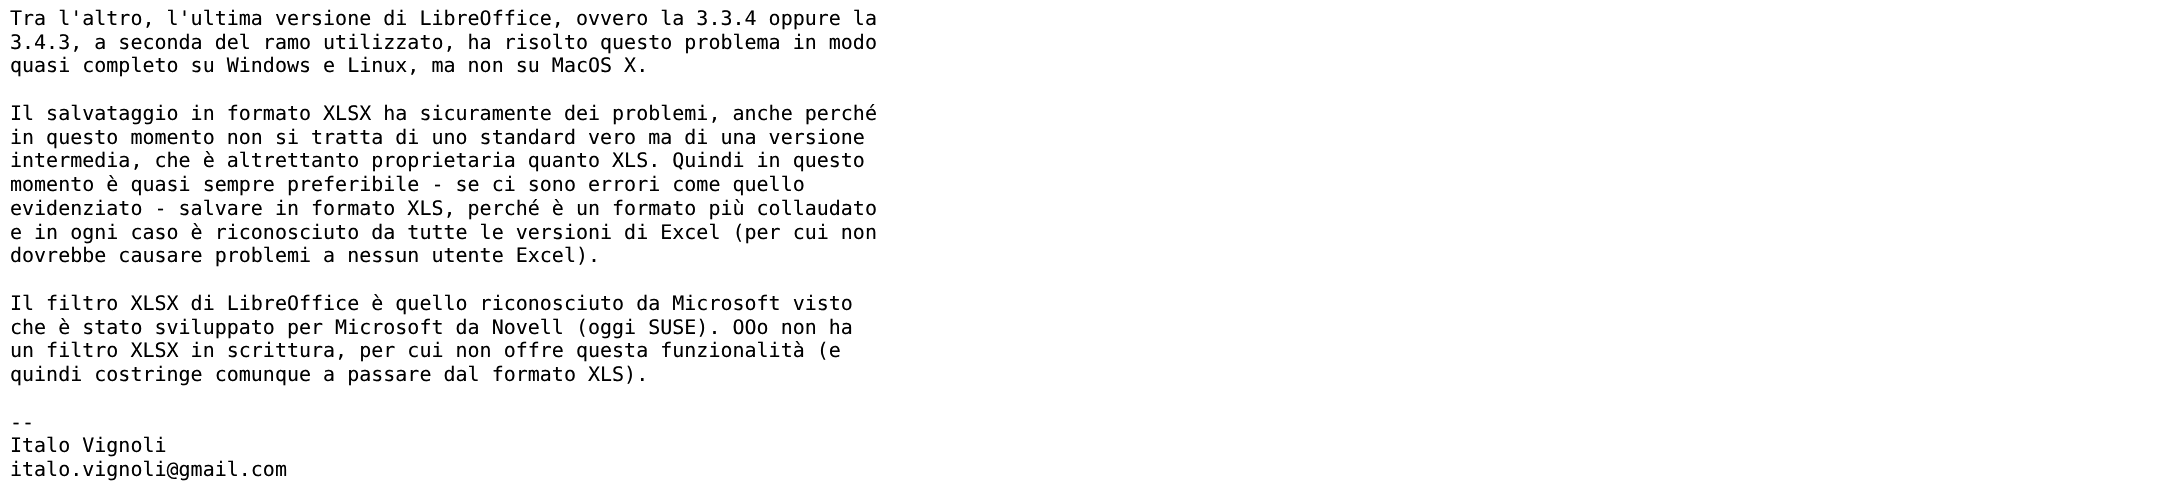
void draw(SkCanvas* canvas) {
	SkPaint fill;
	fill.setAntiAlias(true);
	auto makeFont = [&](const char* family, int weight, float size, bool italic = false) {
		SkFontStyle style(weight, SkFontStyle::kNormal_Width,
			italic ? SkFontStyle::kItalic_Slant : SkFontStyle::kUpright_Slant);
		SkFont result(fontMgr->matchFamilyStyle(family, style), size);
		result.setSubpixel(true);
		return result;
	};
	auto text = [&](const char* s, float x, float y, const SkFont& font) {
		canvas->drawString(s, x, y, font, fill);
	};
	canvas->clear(0xFFFFFFFF);
	auto font1 = makeFont("DejaVu Sans Mono", 400, 20);
	fill.setColor(0xFF000000);
	text("Tra l'altro, l'ultima versione di LibreOffice, ovvero la 3.3.4 oppure la", 10, 25, font1);
	text("3.4.3, a seconda del ramo utilizzato, ha risolto questo problema in modo", 10, 49, font1);
	text("quasi completo su Windows e Linux, ma non su MacOS X.", 10, 72, font1);
	text("Il salvataggio in formato XLSX ha sicuramente dei problemi, anche perché", 10, 120, font1);
	text("in questo momento non si tratta di uno standard vero ma di una versione", 10, 144, font1);
	text("intermedia, che è altrettanto proprietaria quanto XLS. Quindi in questo", 10, 167, font1);
	text("momento è quasi sempre preferibile - se ci sono errori come quello", 10, 191, font1);
	text("evidenziato - salvare in formato XLS, perché è un formato più collaudato", 10, 215, font1);
	text("e in ogni caso è riconosciuto da tutte le versioni di Excel (per cui non", 10, 239, font1);
	text("dovrebbe causare problemi a nessun utente Excel).", 10, 262, font1);
	text("Il filtro XLSX di LibreOffice è quello riconosciuto da Microsoft visto", 10, 310, font1);
	text("che è stato sviluppato per Microsoft da Novell (oggi SUSE). OOo non ha", 10, 334, font1);
	text("un filtro XLSX in scrittura, per cui non offre questa funzionalità (e", 10, 357, font1);
	text("quindi costringe comunque a passare dal formato XLS).", 10, 381, font1);
	text("--", 10, 429, font1);
	text("Italo Vignoli", 10, 452, font1);
	text("italo.vignoli@gmail.com", 10, 476, font1);
}
